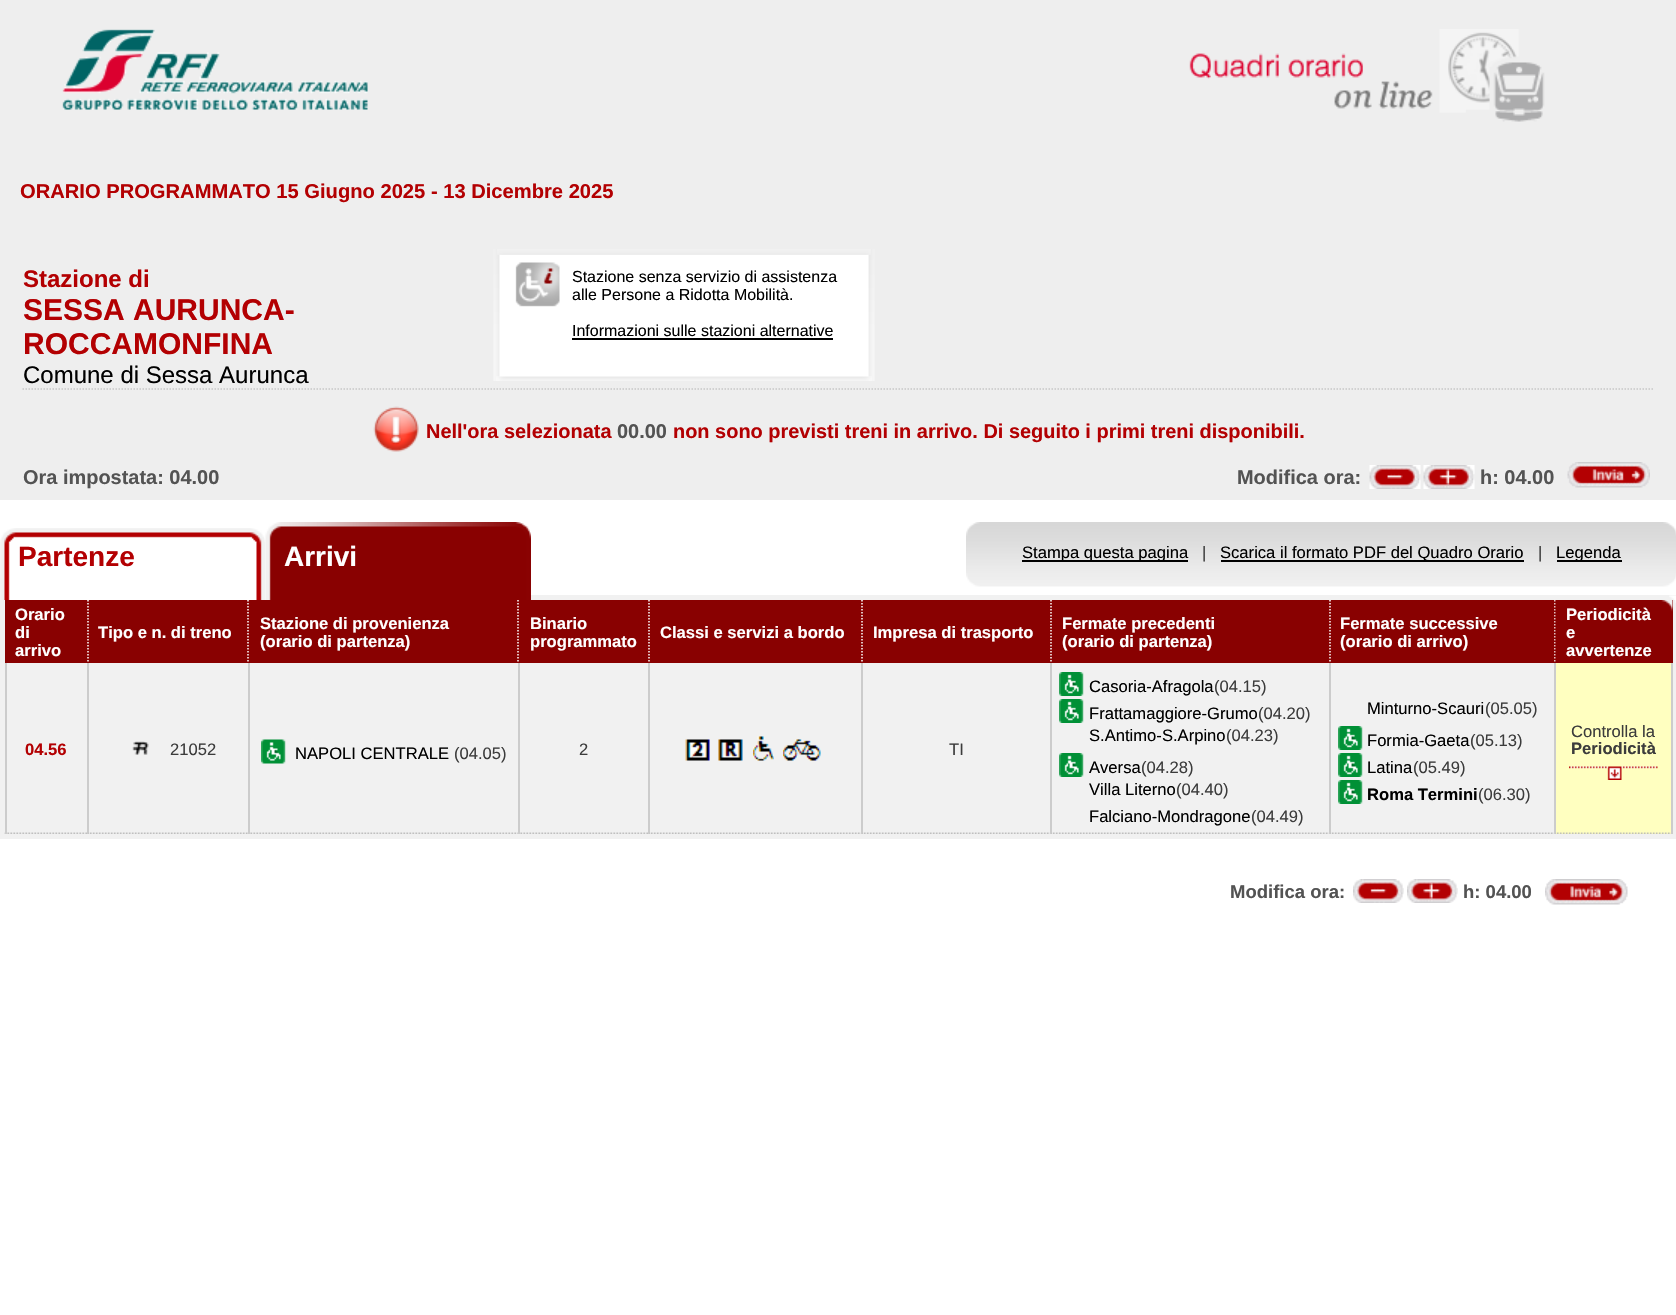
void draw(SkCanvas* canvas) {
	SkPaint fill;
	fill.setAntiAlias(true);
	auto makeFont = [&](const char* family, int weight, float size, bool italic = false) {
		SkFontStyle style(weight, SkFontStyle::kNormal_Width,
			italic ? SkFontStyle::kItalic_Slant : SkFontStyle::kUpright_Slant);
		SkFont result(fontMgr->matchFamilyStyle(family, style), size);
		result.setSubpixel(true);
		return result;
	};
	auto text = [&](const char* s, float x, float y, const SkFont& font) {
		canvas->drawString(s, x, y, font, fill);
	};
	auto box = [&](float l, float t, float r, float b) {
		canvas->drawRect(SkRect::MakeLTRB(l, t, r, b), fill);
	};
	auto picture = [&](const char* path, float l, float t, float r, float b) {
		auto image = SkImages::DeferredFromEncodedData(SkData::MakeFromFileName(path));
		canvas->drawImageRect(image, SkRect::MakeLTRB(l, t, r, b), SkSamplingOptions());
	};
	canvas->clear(0xFFFFFFFF);
	fill.setColor(0xFFEEEEEE);
	box(0, 0, 1676, 500);
	picture("image0.png", 62, 29, 368, 110);
	picture("image1.png", 1189, 29, 1545, 122);
	fill.setStyle(SkPaint::kStroke_Style);
	fill.setStrokeWidth(1.5f);
	fill.setColor(0xFFC8C8C8);
	fill.setPathEffect(SkDashPathEffect::Make({{1.5f, 1.5f}}, 0));
	canvas->drawPath(SkPathBuilder().moveTo(22.5f, 389).lineTo(1654.5f, 389).detach(), fill);
	fill.setPathEffect(nullptr);
	picture("image2.png", 493, 249, 875, 381);
	picture("image3.png", 497, 249, 871, 255);
	picture("image4.png", 496, 376, 872, 381);
	picture("image5.png", 515, 262, 560, 307);
	fill.setStyle(SkPaint::kFill_Style);
	fill.setColor(0xFF000000);
	box(572, 338, 833, 340);
	picture("image6.png", 373, 406, 419, 452);
	picture("image7.png", 1369, 465, 1421, 489);
	picture("image8.png", 1423, 465, 1475, 489);
	picture("image9.png", 1567, 462, 1650, 488);
	fill.setColor(0xFFF1F1F1);
	box(531, 595, 1676, 600);
	picture("image10.png", 1669, 595, 1676, 600);
	picture("image11.png", 0, 528, 266, 600);
	picture("image12.png", 265, 522, 531, 600);
	picture("image13.png", 966, 522, 1676, 573);
	fill.setColor(0xFF000000);
	box(1022, 560, 1188, 562);
	box(1221, 560, 1524, 562);
	box(1557, 560, 1622, 562);
	picture("image14.png", 966, 573, 1676, 587);
	fill.setColor(0xFFF1F1F1);
	box(0, 600, 1676, 839);
	picture("image15.png", 1675, 600, 1676, 603);
	fill.setColor(0xFF890101);
	box(5, 600, 1673, 663);
	fill.setStyle(SkPaint::kStroke_Style);
	fill.setColor(0xFFFFFFFF);
	fill.setPathEffect(SkDashPathEffect::Make({{1.5f, 1.5f}}, 0));
	canvas->drawPath(SkPathBuilder().moveTo(88, 600).lineTo(88, 663).detach(), fill);
	fill.setPathEffect(nullptr);
	fill.setPathEffect(SkDashPathEffect::Make({{1.5f, 1.5f}}, 0));
	canvas->drawPath(SkPathBuilder().moveTo(248, 600).lineTo(248, 663).detach(), fill);
	fill.setPathEffect(nullptr);
	fill.setPathEffect(SkDashPathEffect::Make({{1.5f, 1.5f}}, 0));
	canvas->drawPath(SkPathBuilder().moveTo(518, 600).lineTo(518, 663).detach(), fill);
	fill.setPathEffect(nullptr);
	fill.setPathEffect(SkDashPathEffect::Make({{1.5f, 1.5f}}, 0));
	canvas->drawPath(SkPathBuilder().moveTo(649, 600).lineTo(649, 663).detach(), fill);
	fill.setPathEffect(nullptr);
	fill.setPathEffect(SkDashPathEffect::Make({{1.5f, 1.5f}}, 0));
	canvas->drawPath(SkPathBuilder().moveTo(862, 600).lineTo(862, 663).detach(), fill);
	fill.setPathEffect(nullptr);
	fill.setPathEffect(SkDashPathEffect::Make({{1.5f, 1.5f}}, 0));
	canvas->drawPath(SkPathBuilder().moveTo(1051, 600).lineTo(1051, 663).detach(), fill);
	fill.setPathEffect(nullptr);
	fill.setPathEffect(SkDashPathEffect::Make({{1.5f, 1.5f}}, 0));
	canvas->drawPath(SkPathBuilder().moveTo(1330, 600).lineTo(1330, 663).detach(), fill);
	fill.setPathEffect(nullptr);
	fill.setPathEffect(SkDashPathEffect::Make({{1.5f, 1.5f}}, 0));
	canvas->drawPath(SkPathBuilder().moveTo(1555, 600).lineTo(1555, 663).detach(), fill);
	fill.setPathEffect(nullptr);
	picture("image16.png", 1555, 600, 1673, 662);
	picture("image17.png", 4, 832, 87, 834);
	fill.setStyle(SkPaint::kFill_Style);
	fill.setColor(0xFFCCCCCC);
	box(87, 663, 89, 834);
	box(5, 663, 7, 834);
	picture("image18.png", 88, 832, 248, 834);
	box(248, 663, 250, 834);
	picture("image19.png", 132, 741, 149, 755);
	picture("image20.png", 250, 832, 518, 834);
	box(518, 663, 520, 834);
	picture("image21.png", 261, 739, 286, 764);
	picture("image22.png", 520, 832, 648, 834);
	box(648, 663, 650, 834);
	picture("image23.png", 649, 832, 861, 834);
	box(861, 663, 863, 834);
	picture("image24.png", 685, 739, 710, 761);
	picture("image25.png", 718, 739, 743, 761);
	picture("image26.png", 753, 736, 774, 761);
	picture("image27.png", 783, 739, 821, 761);
	picture("image28.png", 862, 832, 1050, 834);
	box(1050, 663, 1052, 834);
	picture("image29.png", 1051, 832, 1329, 834);
	box(1329, 663, 1331, 834);
	picture("image30.png", 1059, 672, 1084, 696);
	picture("image30.png", 1059, 699, 1084, 723);
	picture("image30.png", 1059, 753, 1084, 777);
	picture("image31.png", 1330, 832, 1554, 834);
	box(1554, 663, 1556, 834);
	picture("image30.png", 1338, 726, 1363, 750);
	picture("image30.png", 1338, 753, 1363, 777);
	picture("image30.png", 1338, 780, 1363, 804);
	fill.setColor(0xFFFFFFC0);
	box(1556, 663, 1671, 834);
	picture("image32.png", 1555, 832, 1671, 834);
	fill.setColor(0xFFCCCCCC);
	box(1671, 663, 1673, 834);
	picture("image33.png", 1569, 766, 1658, 780);
	picture("image34.png", 1353, 879, 1404, 903);
	picture("image35.png", 1407, 879, 1458, 903);
	picture("image36.png", 1545, 879, 1628, 905);
	auto font1 = makeFont("Liberation Sans", 700, 20.15f);
	fill.setColor(0xFFB30002);
	text("ORARIO PROGRAMMATO 15 Giugno 2025 - 13 Dicembre 2025", 20, 198, font1);
	auto font2 = makeFont("Liberation Sans", 700, 24);
	text("Stazione di", 23, 287, font2);
	auto font3 = makeFont("Liberation Sans", 700, 30);
	text("SESSA AURUNCA-", 23, 320, font3);
	text("ROCCAMONFINA", 23, 354, font3);
	auto font4 = makeFont("Liberation Sans", 400, 24);
	fill.setColor(0xFF000000);
	text("Comune di Sessa Aurunca", 23, 383, font4);
	auto font5 = makeFont("Liberation Sans", 400, 16);
	text("Stazione senza servizio di assistenza", 572, 282, font5);
	text("alle Persone a Ridotta Mobilità.", 572, 300, font5);
	text("Informazioni sulle stazioni alternative", 572, 336, font5);
	auto font6 = makeFont("Liberation Sans", 700, 19.95f);
	fill.setColor(0xFFB30002);
	text("Nell'ora selezionata", 426, 438, font6);
	fill.setColor(0xFF535353);
	text("00.00", 617, 438, font6);
	fill.setColor(0xFFB30002);
	text("non sono previsti treni in arrivo. Di seguito i primi treni disponibili.", 673, 438, font6);
	fill.setColor(0xFF535353);
	text("Ora impostata: 04.00", 23, 484, font6);
	text("Modifica ora:", 1237, 484, font6);
	text("h: 04.00", 1480, 484, font6);
	auto font7 = makeFont("Liberation Sans", 700, 28);
	fill.setColor(0xFFB30002);
	text("Partenze", 18, 566, font7);
	fill.setColor(0xFFFFFFFF);
	text("Arrivi", 284, 566, font7);
	auto font8 = makeFont("Liberation Sans", 400, 16.6f);
	fill.setColor(0xFF000000);
	text("Stampa questa pagina", 1022, 558, font8);
	fill.setColor(0xFF3C3C3C);
	text("|", 1202, 558, font8);
	fill.setColor(0xFF000000);
	text("Scarica il formato PDF del Quadro Orario", 1220, 558, font8);
	fill.setColor(0xFF3C3C3C);
	text("|", 1538, 558, font8);
	fill.setColor(0xFF000000);
	text("Legenda", 1556, 558, font8);
	auto font9 = makeFont("Liberation Sans", 700, 16.6f);
	fill.setColor(0xFFFFFFFF);
	text("Orario", 15, 620, font9);
	text("di", 15, 638, font9);
	text("arrivo", 15, 656, font9);
	text("Tipo e n. di treno", 98, 638, font9);
	text("Stazione di provenienza", 260, 629, font9);
	text("(orario di partenza)", 260, 647, font9);
	text("Binario", 530, 629, font9);
	text("programmato", 530, 647, font9);
	text("Classi e servizi a bordo", 660, 638, font9);
	text("Impresa di trasporto", 873, 638, font9);
	text("Fermate precedenti", 1062, 629, font9);
	text("(orario di partenza)", 1062, 647, font9);
	text("Fermate successive", 1340, 629, font9);
	text("(orario di arrivo)", 1340, 647, font9);
	text("Periodicità", 1566, 620, font9);
	text("e", 1566, 638, font9);
	text("avvertenze", 1566, 656, font9);
	fill.setColor(0xFFB30002);
	text("04.56", 25, 755, font9);
	fill.setColor(0xFF3C3C3C);
	text("21052", 170, 755, font8);
	fill.setColor(0xFF000000);
	text("NAPOLI CENTRALE", 295, 759, font8);
	fill.setColor(0xFF3C3C3C);
	text("(04.05)", 454, 759, font8);
	text("2", 579, 755, font8);
	text("TI", 949, 755, font8);
	fill.setColor(0xFF000000);
	text("Casoria-Afragola", 1089, 692, font8);
	fill.setColor(0xFF3C3C3C);
	text("(04.15)", 1214, 692, font8);
	fill.setColor(0xFF000000);
	text("Frattamaggiore-Grumo", 1089, 719, font8);
	fill.setColor(0xFF3C3C3C);
	text("(04.20)", 1258, 719, font8);
	fill.setColor(0xFF000000);
	text("S.Antimo-S.Arpino", 1089, 741, font8);
	fill.setColor(0xFF3C3C3C);
	text("(04.23)", 1226, 741, font8);
	fill.setColor(0xFF000000);
	text("Aversa", 1089, 773, font8);
	fill.setColor(0xFF3C3C3C);
	text("(04.28)", 1141, 773, font8);
	fill.setColor(0xFF000000);
	text("Villa Literno", 1089, 795, font8);
	fill.setColor(0xFF3C3C3C);
	text("(04.40)", 1176, 795, font8);
	fill.setColor(0xFF000000);
	text("Falciano-Mondragone", 1089, 822, font8);
	fill.setColor(0xFF3C3C3C);
	text("(04.49)", 1251, 822, font8);
	fill.setColor(0xFF000000);
	text("Minturno-Scauri", 1367, 714, font8);
	fill.setColor(0xFF3C3C3C);
	text("(05.05)", 1485, 714, font8);
	fill.setColor(0xFF000000);
	text("Formia-Gaeta", 1367, 746, font8);
	fill.setColor(0xFF3C3C3C);
	text("(05.13)", 1470, 746, font8);
	fill.setColor(0xFF000000);
	text("Latina", 1367, 773, font8);
	fill.setColor(0xFF3C3C3C);
	text("(05.49)", 1413, 773, font8);
	fill.setColor(0xFF000000);
	text("Roma Termini", 1367, 800, font9);
	fill.setColor(0xFF3C3C3C);
	text("(06.30)", 1478, 800, font8);
	text("Controlla la", 1571, 737, font8);
	text("Periodicità", 1571, 754, font9);
	auto font10 = makeFont("Liberation Sans", 700, 18.5f);
	fill.setColor(0xFF535353);
	text("Modifica ora:", 1230, 898, font10);
	text("h: 04.00", 1463, 898, font10);
}
